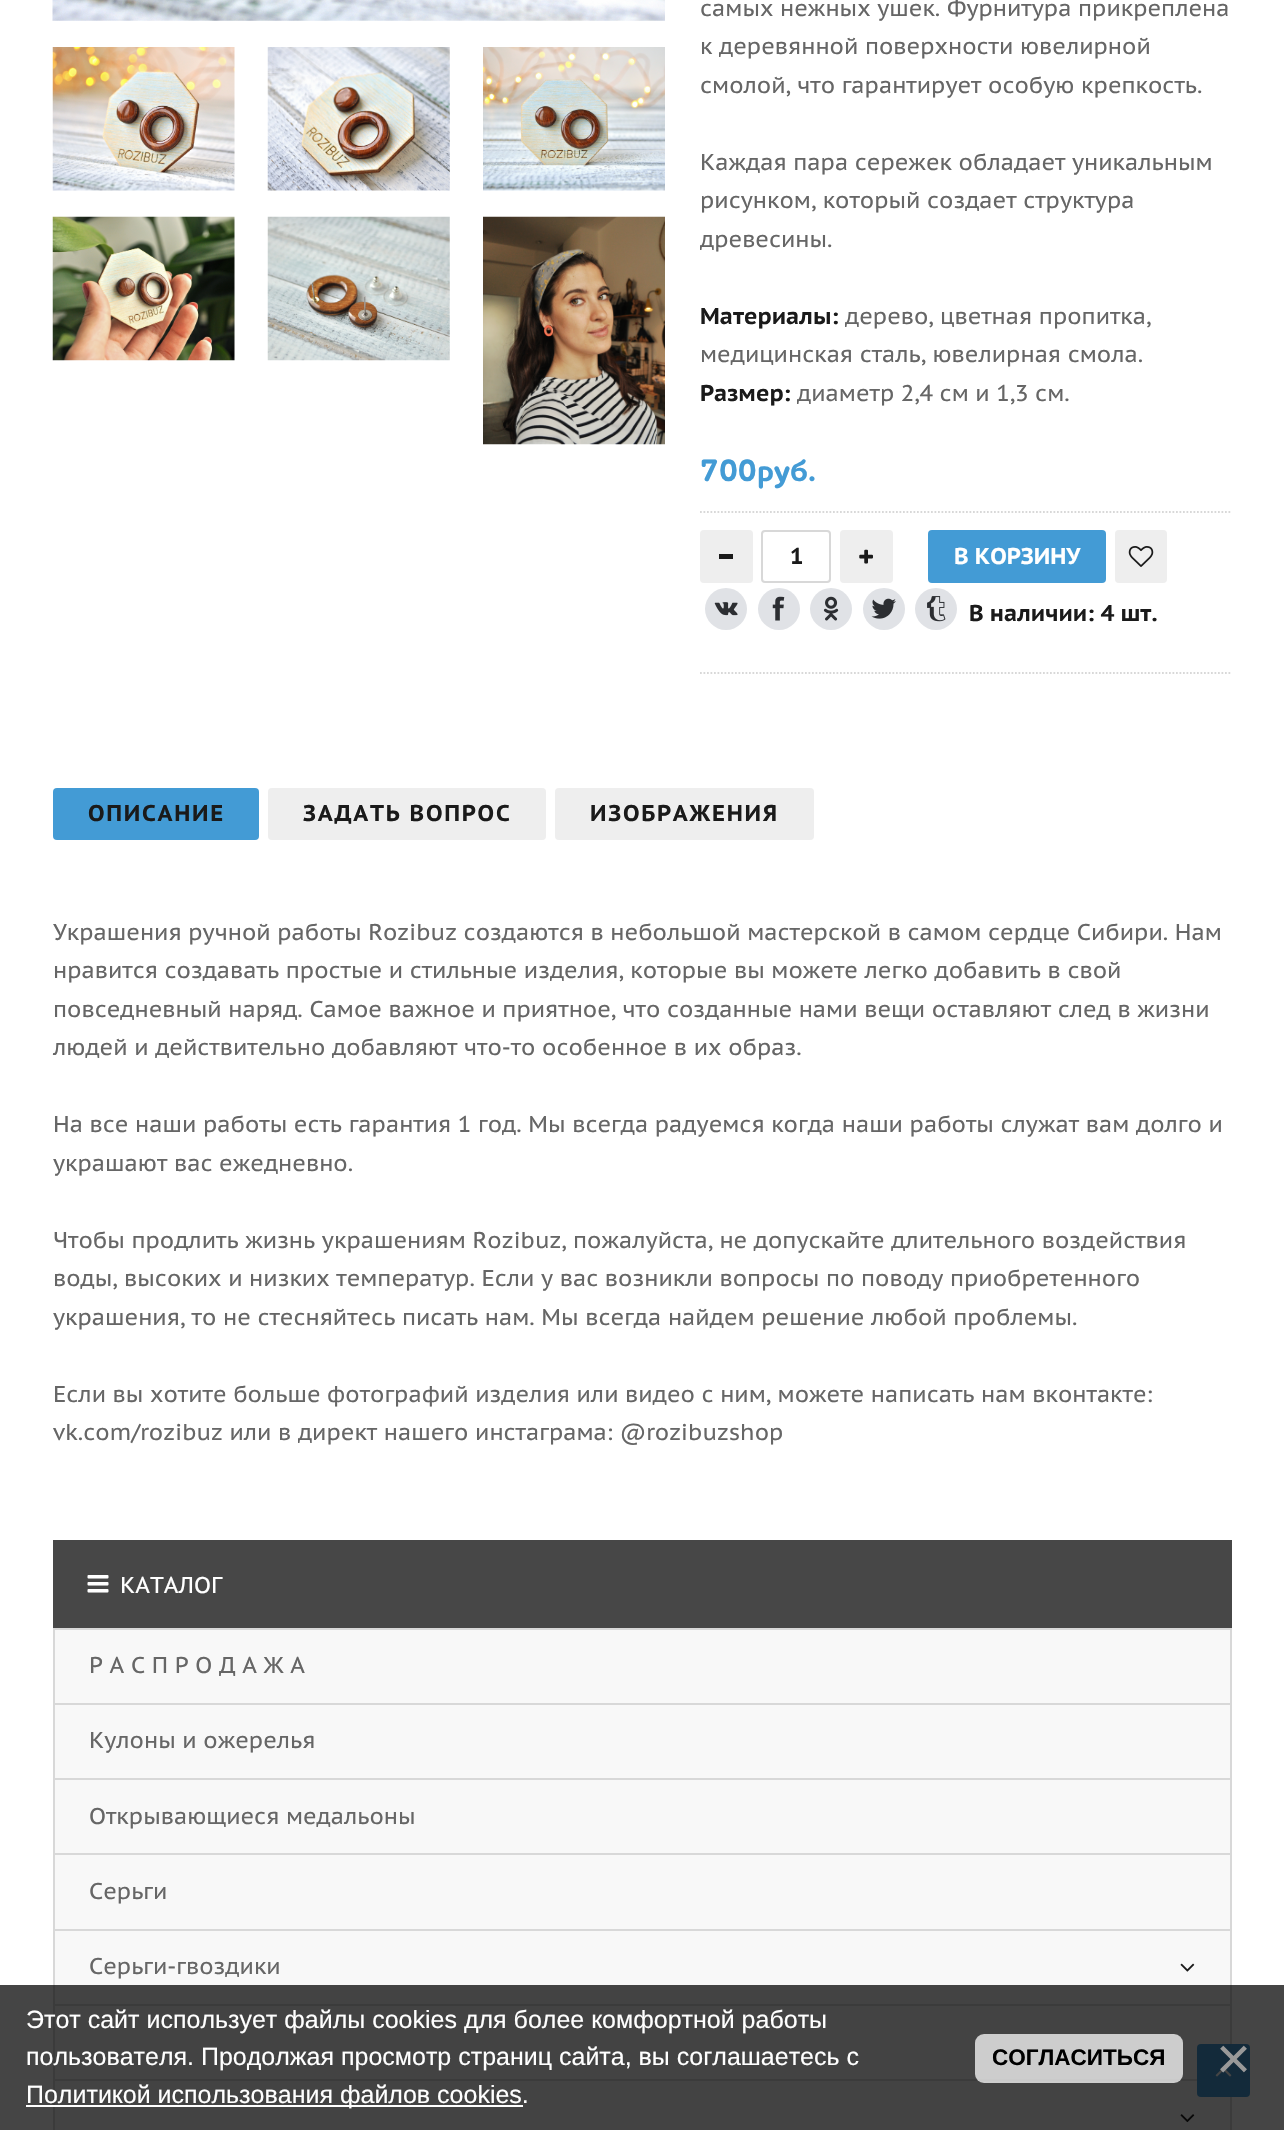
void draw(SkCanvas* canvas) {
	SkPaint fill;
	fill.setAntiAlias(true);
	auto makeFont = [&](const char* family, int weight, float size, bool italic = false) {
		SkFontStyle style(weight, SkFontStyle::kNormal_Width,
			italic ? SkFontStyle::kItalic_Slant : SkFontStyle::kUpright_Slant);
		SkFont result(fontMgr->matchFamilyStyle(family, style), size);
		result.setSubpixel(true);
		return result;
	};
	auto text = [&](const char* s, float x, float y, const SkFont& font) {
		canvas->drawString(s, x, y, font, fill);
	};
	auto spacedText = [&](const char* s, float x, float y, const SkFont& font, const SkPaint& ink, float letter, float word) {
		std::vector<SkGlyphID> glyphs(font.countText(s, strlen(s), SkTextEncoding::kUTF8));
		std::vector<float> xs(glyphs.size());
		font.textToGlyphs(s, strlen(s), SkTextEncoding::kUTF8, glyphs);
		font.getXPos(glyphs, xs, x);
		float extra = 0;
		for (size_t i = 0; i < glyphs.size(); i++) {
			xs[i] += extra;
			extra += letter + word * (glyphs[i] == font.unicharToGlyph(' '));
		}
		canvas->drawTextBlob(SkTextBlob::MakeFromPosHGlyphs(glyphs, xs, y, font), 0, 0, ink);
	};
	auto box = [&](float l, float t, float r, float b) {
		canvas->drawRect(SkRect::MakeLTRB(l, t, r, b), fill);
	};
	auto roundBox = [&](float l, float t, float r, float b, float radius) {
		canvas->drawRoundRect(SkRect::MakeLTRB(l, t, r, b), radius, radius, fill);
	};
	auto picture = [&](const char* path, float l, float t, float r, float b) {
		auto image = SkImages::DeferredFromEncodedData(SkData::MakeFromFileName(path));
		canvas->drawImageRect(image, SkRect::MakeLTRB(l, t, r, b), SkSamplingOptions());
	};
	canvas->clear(0xFFFFFFFF);
	picture("image0.png", 52, 0, 665, 21);
	picture("image1.png", 52, 47, 235, 191);
	picture("image2.png", 267, 47, 450, 191);
	picture("image3.png", 483, 47, 665, 191);
	picture("image4.png", 52, 216, 235, 361);
	picture("image5.png", 267, 216, 450, 361);
	picture("image6.png", 483, 216, 665, 445);
	fill.setStyle(SkPaint::kStroke_Style);
	fill.setStrokeWidth(1.8f);
	fill.setColor(0xFFD8D8D8);
	fill.setPathEffect(SkDashPathEffect::Make({{1.75f, 1.75f}}, 0));
	canvas->drawPath(SkPathBuilder().moveTo(700, 512).lineTo(1232, 512).detach(), fill);
	fill.setPathEffect(nullptr);
	fill.setPathEffect(SkDashPathEffect::Make({{1.75f, 1.75f}}, 0));
	canvas->drawPath(SkPathBuilder().moveTo(700, 673).lineTo(1232, 673).detach(), fill);
	fill.setPathEffect(nullptr);
	fill.setStyle(SkPaint::kFill_Style);
	fill.setColor(0xFFEEEEEE);
	roundBox(700, 530, 753, 583, 4);
	fill.setColor(0xFF1A1A1A);
	box(719, 554, 733, 559);
	fill.setStyle(SkPaint::kStroke_Style);
	fill.setStrokeWidth(2);
	fill.setColor(0xFFD8D8D8);
	canvas->drawRoundRect(SkRect::MakeLTRB(762, 531, 830, 582), 3, 3, fill);
	fill.setStyle(SkPaint::kFill_Style);
	fill.setColor(0xFFEEEEEE);
	roundBox(840, 530, 893, 583, 4);
	picture("image7.png", 859, 549, 873, 564);
	fill.setColor(0xFF439BD5);
	roundBox(928, 530, 1106, 583, 4);
	fill.setColor(0xFFEEEEEE);
	roundBox(1115, 530, 1167, 583, 4);
	picture("image8.png", 1128, 546, 1154, 567);
	fill.setColor(0xFFE0E2E6);
	canvas->drawCircle(726, 609, 21, fill);
	picture("image9.png", 714, 602, 738, 616);
	canvas->drawCircle(779, 609, 21, fill);
	picture("image10.png", 772, 596, 785, 621);
	canvas->drawCircle(831, 609, 21, fill);
	picture("image11.png", 823, 596, 839, 621);
	canvas->drawCircle(884, 609, 21, fill);
	picture("image12.png", 871, 598, 896, 619);
	canvas->drawCircle(936, 609, 21, fill);
	picture("image13.png", 927, 596, 946, 622);
	fill.setColor(0xFF439BD5);
	roundBox(53, 788, 259, 840, 4);
	fill.setColor(0xFFEEEEEE);
	roundBox(268, 788, 546, 840, 4);
	roundBox(555, 788, 814, 840, 4);
	fill.setColor(0xFF474747);
	box(53, 1540, 1232, 1628);
	picture("image14.png", 87, 1575, 109, 1593);
	fill.setColor(0xFFF8F8F8);
	canvas->drawRect(SkRect::MakeLTRB(54, 1629, 1231, 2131), fill);
	fill.setStyle(SkPaint::kStroke_Style);
	fill.setColor(0xFFD8D8D8);
	canvas->drawRect(SkRect::MakeLTRB(54, 1629, 1231, 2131), fill);
	fill.setStyle(SkPaint::kFill_Style);
	box(54, 1703, 1230, 1705);
	box(54, 1778, 1230, 1780);
	box(54, 1853, 1230, 1855);
	box(54, 1929, 1230, 1931);
	box(54, 2004, 1230, 2006);
	picture("image15.png", 1180, 1963, 1195, 1972);
	box(54, 2079, 1197, 2081);
	picture("image16.png", 1180, 2114, 1195, 2123);
	fill.setColor(0xFF439BD5);
	roundBox(1197, 2044, 1250, 2097, 4);
	picture("image17.png", 1215, 2067, 1232, 2077);
	fill.setColor(0xBA000000);
	box(0, 1985, 1284, 2130);
	fill.setColor(0xFFFFFFFF);
	box(26, 2105, 523, 2107);
	fill.setColor(0xBAFFFFFF);
	roundBox(975, 2034, 1183, 2083, 9);
	auto font1 = makeFont("PT Sans Caption", 400, 22.75f);
	fill.setColor(0xFF666666);
	text("самых нежных ушек. Фурнитура прикреплена", 700, 16, font1);
	text("к деревянной поверхности ювелирной", 700, 54, font1);
	text("смолой, что гарантирует особую крепкость.", 700, 93, font1);
	text("Каждая пара сережек обладает уникальным", 700, 170, font1);
	text("рисунком, который создает структура", 700, 208, font1);
	text("древесины.", 700, 247, font1);
	auto font2 = makeFont("PT Sans Caption", 700, 22.75f);
	fill.setColor(0xFF1A1A1A);
	text("Материалы:", 700, 324, font2);
	fill.setColor(0xFF666666);
	text("дерево, цветная пропитка,", 845, 324, font1);
	text("медицинская сталь, ювелирная смола.", 700, 362, font1);
	fill.setColor(0xFF1A1A1A);
	text("Размер:", 700, 401, font2);
	fill.setColor(0xFF666666);
	text("диаметр 2,4 см и 1,3 см.", 797, 401, font1);
	auto font3 = makeFont("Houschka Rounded", 700, 31.5f);
	fill.setColor(0xFF439BD5);
	text("700руб.", 700, 481, font3);
	fill.setColor(0xFF1A1A1A);
	text("1", 790, 564, font2);
	fill.setColor(0xFFFFFFFF);
	text("В КОРЗИНУ", 954, 564, font2);
	fill.setColor(0xFF1A1A1A);
	text("В наличии: 4 шт.", 969, 621, font2);
	spacedText("ОПИСАНИЕ", 88, 821, font2, fill, 1.75f, 0);
	spacedText("ЗАДАТЬ ВОПРОС", 303, 821, font2, fill, 1.75f, 0);
	spacedText("ИЗОБРАЖЕНИЯ", 590, 821, font2, fill, 1.75f, 0);
	fill.setColor(0xFF666666);
	text("Украшения ручной работы Rozibuz создаются в небольшой мастерской в самом сердце Сибири. Нам", 53, 940, font1);
	text("нравится создавать простые и стильные изделия, которые вы можете легко добавить в свой", 53, 978, font1);
	text("повседневный наряд. Самое важное и приятное, что созданные нами вещи оставляют след в жизни", 53, 1017, font1);
	text("людей и действительно добавляют что-то особенное в их образ.", 53, 1055, font1);
	text("На все наши работы есть гарантия 1 год. Мы всегда радуемся когда наши работы служат вам долго и", 53, 1132, font1);
	text("украшают вас ежедневно.", 53, 1171, font1);
	text("Чтобы продлить жизнь украшениям Rozibuz, пожалуйста, не допускайте длительного воздействия", 53, 1248, font1);
	text("воды, высоких и низких температур. Если у вас возникли вопросы по поводу приобретенного", 53, 1286, font1);
	text("украшения, то не стесняйтесь писать нам. Мы всегда найдем решение любой проблемы.", 53, 1325, font1);
	text("Если вы хотите больше фотографий изделия или видео с ним, можете написать нам вконтакте:", 53, 1402, font1);
	text("vk.com/rozibuz или в директ нашего инстаграма: @rozibuzshop", 53, 1440, font1);
	fill.setColor(0xFFFFFFFF);
	text("КАТАЛОГ", 120, 1593, font1);
	fill.setColor(0xFF666666);
	text("Р А С П Р О Д А Ж А", 89, 1673, font1);
	text("Кулоны и ожерелья", 89, 1748, font1);
	text("Открывающиеся медальоны", 89, 1824, font1);
	text("Серьги", 89, 1899, font1);
	text("Серьги-гвоздики", 89, 1974, font1);
	auto font4 = makeFont("Liberation Sans", 400, 25);
	fill.setColor(0xFFFFFFFF);
	text("Этот сайт использует файлы cookies для более комфортной работы", 26, 2028, font4);
	text("пользователя. Продолжая просмотр страниц сайта, вы соглашаетесь с", 26, 2065, font4);
	text("Политикой использования файлов cookies.", 26, 2103, font4);
	auto font5 = makeFont("Liberation Sans", 700, 22.5f);
	fill.setColor(0xFF000000);
	text("СОГЛАСИТЬСЯ", 992, 2065, font5);
	auto font6 = makeFont("Liberation Sans", 400, 60);
	fill.setColor(0xFF999999);
	text("×", 1216, 2079, font6);
}
